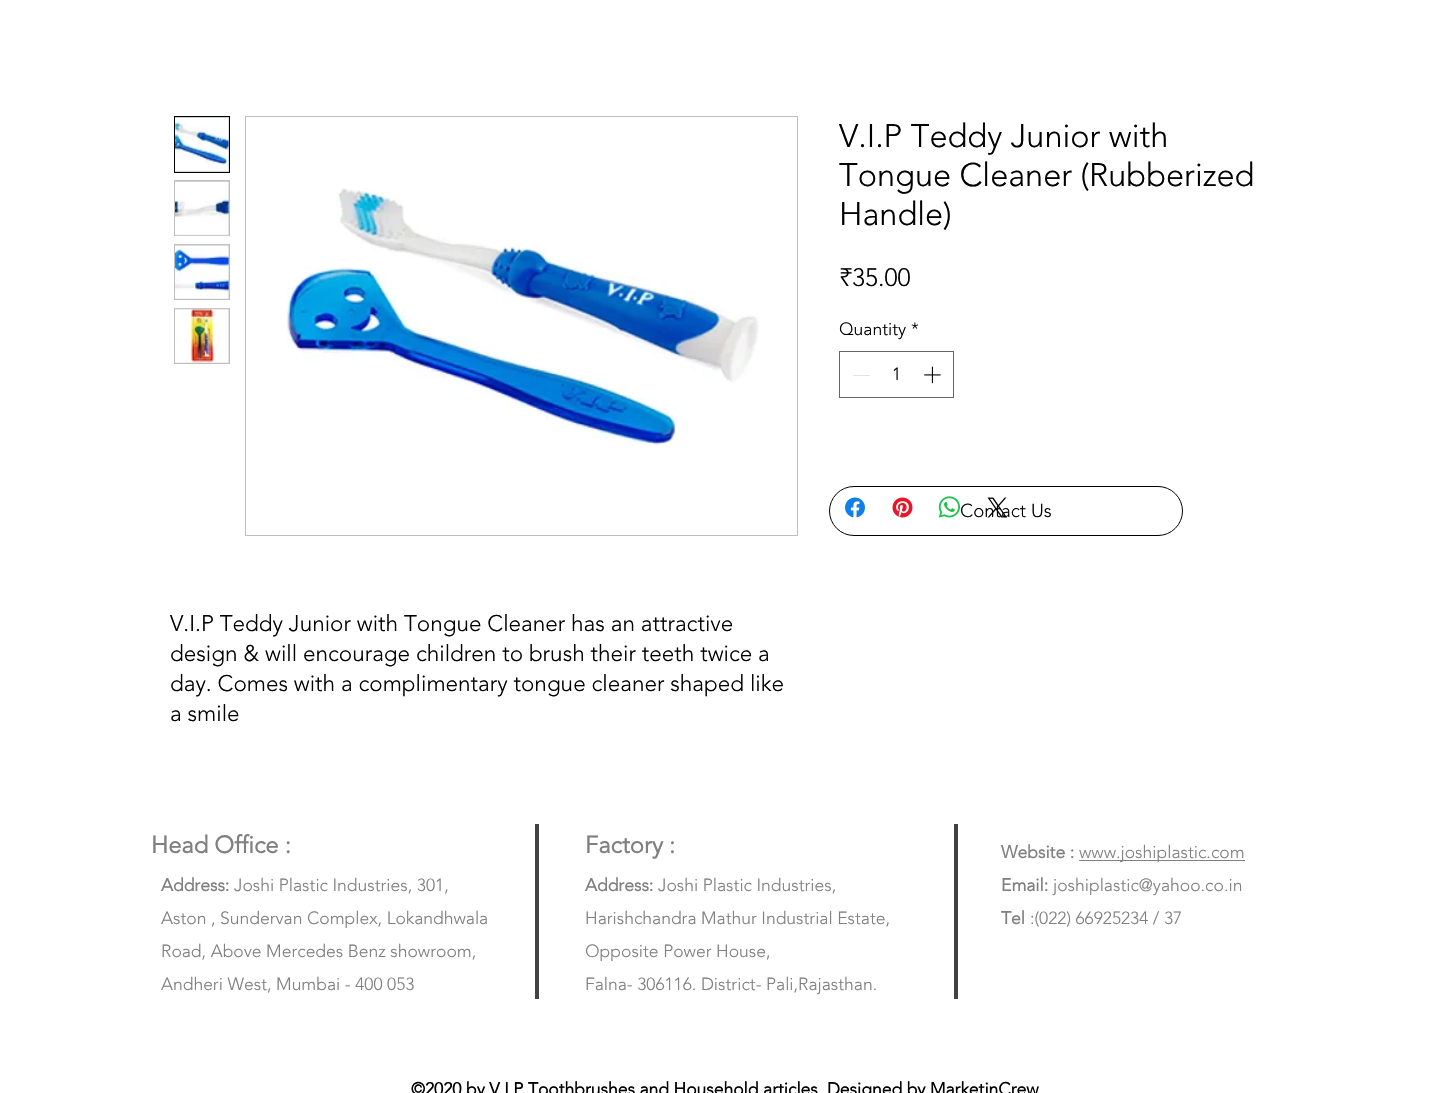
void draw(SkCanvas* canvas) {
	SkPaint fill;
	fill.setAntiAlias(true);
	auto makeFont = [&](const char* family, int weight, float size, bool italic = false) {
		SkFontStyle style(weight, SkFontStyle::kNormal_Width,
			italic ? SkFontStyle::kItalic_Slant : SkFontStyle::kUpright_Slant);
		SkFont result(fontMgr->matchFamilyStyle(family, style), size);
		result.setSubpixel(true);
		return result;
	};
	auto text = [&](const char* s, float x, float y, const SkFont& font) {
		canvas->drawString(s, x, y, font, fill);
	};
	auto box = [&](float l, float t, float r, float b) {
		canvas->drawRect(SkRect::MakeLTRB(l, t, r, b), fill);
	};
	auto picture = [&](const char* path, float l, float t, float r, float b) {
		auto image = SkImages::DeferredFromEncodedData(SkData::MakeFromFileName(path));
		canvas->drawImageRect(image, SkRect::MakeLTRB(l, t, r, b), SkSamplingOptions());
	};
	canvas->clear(0xFFFFFFFF);
	fill.setStyle(SkPaint::kStroke_Style);
	fill.setStrokeWidth(1);
	fill.setColor(0xFF666666);
	canvas->drawRect(SkRect::MakeLTRB(839.5f, 351.5f, 953.5f, 397.5f), fill);
	fill.setStyle(SkPaint::kFill_Style);
	fill.setColor(0xFFE3E3E3);
	box(853, 375, 870, 376);
	picture("image0.png", 924, 366, 941, 384);
	picture("image1.png", 845, 497, 865, 518);
	picture("image2.png", 892, 497, 913, 518);
	picture("image3.png", 938, 496, 960, 518);
	picture("image4.png", 987, 497, 1007, 518);
	fill.setColor(0xFFBFBFBF);
	canvas->drawRect(SkRect::MakeLTRB(174.5f, 116.5f, 229.5f, 172.5f), fill);
	fill.setStyle(SkPaint::kStroke_Style);
	fill.setColor(0xFF000000);
	canvas->drawRect(SkRect::MakeLTRB(174.5f, 116.5f, 229.5f, 172.5f), fill);
	picture("image5.png", 175, 117, 229, 172);
	fill.setStyle(SkPaint::kFill_Style);
	fill.setColor(0xFFBFBFBF);
	box(174, 180, 230, 236);
	picture("image6.png", 175, 181, 229, 236);
	box(174, 244, 230, 300);
	picture("image7.png", 175, 244, 229, 299);
	box(174, 308, 230, 364);
	picture("image8.png", 175, 308, 229, 363);
	fill.setStyle(SkPaint::kStroke_Style);
	canvas->drawRect(SkRect::MakeLTRB(245.5f, 116.5f, 797.5f, 535.5f), fill);
	picture("image9.png", 286, 188, 759, 448);
	fill.setColor(0xFF000000);
	canvas->drawRoundRect(SkRect::MakeLTRB(829.5f, 486.5f, 1182.5f, 535.5f), 24.5f, 24.5f, fill);
	fill.setStyle(SkPaint::kFill_Style);
	fill.setColor(0xFF424242);
	box(535, 824, 539, 999);
	box(954, 824, 958, 999);
	fill.setColor(0xFF808080);
	box(1079, 860, 1245, 861);
	auto font1 = makeFont("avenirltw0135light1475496", 300, 32.5f);
	fill.setColor(0xFF000000);
	text("V.I.P Teddy Junior with", 839, 147, font1);
	text("Tongue Cleaner (Rubberized", 839, 186, font1);
	text("Handle)", 839, 225, font1);
	auto font2 = makeFont("avenirltw0135light1475496", 300, 25);
	text("₹35.00", 839, 286, font2);
	auto font3 = makeFont("avenirltw0135light1475496", 300, 17.5f);
	text("Quantity", 839, 335, font3);
	text("*", 911, 335, font3);
	text("1", 892, 380, font3);
	auto font4 = makeFont("avenirltw0135light1475496", 300, 22.5f);
	text("V.I.P Teddy Junior with Tongue Cleaner has an attractive", 170, 631, font4);
	text("design & will encourage children to brush their teeth twice a", 170, 661, font4);
	text("day. Comes with a complimentary tongue cleaner shaped like", 170, 691, font4);
	text("a smile", 170, 721, font4);
	auto font5 = makeFont("avenirltw0135light1475496", 300, 18.75f);
	text("Contact Us", 960, 517, font5);
	auto font6 = makeFont("avenirltw0135light1475496", 700, 23.75f);
	fill.setColor(0xFF808080);
	text("Head Office :", 151, 853, font6);
	text("Factory :", 585, 853, font6);
	auto font7 = makeFont("avenirltw0135light1475496", 700, 17.5f);
	text("Website :", 1001, 858, font7);
	text("www.joshiplastic.com", 1079, 858, font3);
	text("Email:", 1001, 891, font7);
	text("joshiplastic@yahoo.co.in", 1053, 891, font3);
	text("Tel", 1001, 924, font7);
	text(":(022) 66925234 / 37", 1030, 924, font3);
	text("Address:", 161, 891, font7);
	text("Joshi Plastic Industries, 301,", 234, 891, font3);
	text("Aston , Sundervan Complex, Lokandhwala", 161, 924, font3);
	text("Road, Above Mercedes Benz showroom,", 161, 957, font3);
	text("Andheri West, Mumbai - 400 053", 161, 990, font3);
	text("Address:", 585, 891, font7);
	text("Joshi Plastic Industries,", 658, 891, font3);
	text("Harishchandra Mathur Industrial Estate,", 585, 924, font3);
	text("Opposite Power House,", 585, 957, font3);
	text("Falna- 306116. District- Pali,Rajasthan.", 585, 990, font3);
	fill.setColor(0xFF000000);
	text("©2020 by V.I.P Toothbrushes and Household articles. Designed by MarketinCrew", 411, 1095, font7);
}
